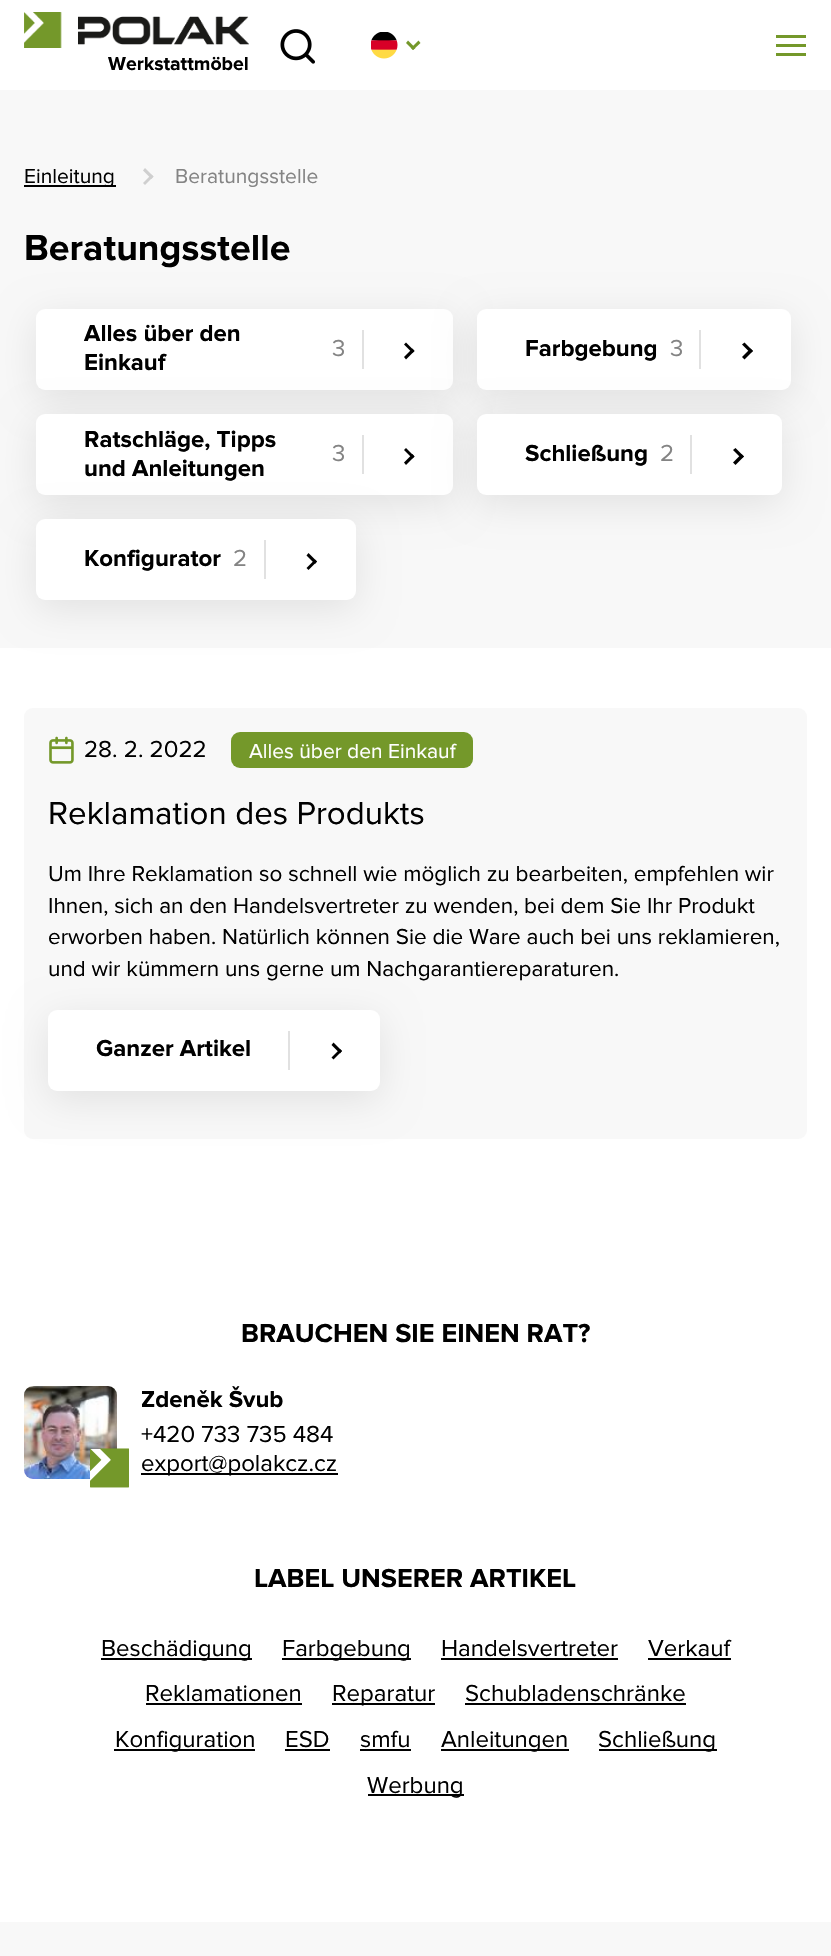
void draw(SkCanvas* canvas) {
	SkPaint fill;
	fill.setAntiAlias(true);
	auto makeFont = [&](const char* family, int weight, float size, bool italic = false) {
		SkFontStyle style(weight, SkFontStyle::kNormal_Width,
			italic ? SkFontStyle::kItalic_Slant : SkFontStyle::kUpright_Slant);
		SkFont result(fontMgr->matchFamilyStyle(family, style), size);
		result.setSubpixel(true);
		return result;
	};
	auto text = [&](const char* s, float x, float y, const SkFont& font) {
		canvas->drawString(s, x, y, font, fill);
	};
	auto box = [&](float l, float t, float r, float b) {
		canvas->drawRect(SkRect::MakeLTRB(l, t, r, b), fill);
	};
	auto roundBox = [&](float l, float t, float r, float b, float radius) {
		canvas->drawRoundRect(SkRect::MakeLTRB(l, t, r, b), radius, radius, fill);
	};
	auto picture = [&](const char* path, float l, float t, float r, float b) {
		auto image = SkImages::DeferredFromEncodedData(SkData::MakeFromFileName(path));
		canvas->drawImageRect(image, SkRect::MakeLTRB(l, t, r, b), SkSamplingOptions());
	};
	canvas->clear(0xFFFFFFFF);
	fill.setColor(0xFF74982A);
	box(776, 35, 806, 38);
	box(776, 44, 806, 47);
	box(776, 53, 806, 56);
	picture("image0.png", 280, 29, 315, 64);
	picture("image1.png", 371, 32, 398, 59);
	canvas->drawPath(SkPathBuilder().moveTo(420.5f, 43).lineTo(413, 50).lineTo(411, 48).lineTo(418.5f, 40.5f).close().detach(), fill);
	canvas->drawPath(SkPathBuilder().moveTo(415.5f, 48).lineTo(413, 50).lineTo(406, 43).lineTo(408, 40.5f).close().detach(), fill);
	picture("image2.png", 24, 12, 249, 48);
	fill.setColor(0xFFF8F8F8);
	box(0, 90, 831, 648);
	fill.setColor(0xFF000000);
	box(24, 185, 116, 187);
	fill.setColor(0xFFCFCFCF);
	canvas->drawPath(SkPathBuilder().moveTo(145, 168).lineTo(153.5f, 176.5f).lineTo(151.5f, 179).lineTo(143, 170.5f).close().detach(), fill);
	canvas->drawPath(SkPathBuilder().moveTo(151.5f, 174.5f).lineTo(153.5f, 176.5f).lineTo(145, 185).lineTo(143, 183).close().detach(), fill);
	fill.setColor(0x17000000);
	fill.setMaskFilter(SkMaskFilter::MakeBlur(kNormal_SkBlurStyle, 19));
	canvas->drawRoundRect(SkRect::MakeLTRB(36, 318, 453, 399), 9, 9, fill);
	fill.setMaskFilter(nullptr);
	fill.setColor(0xFFFFFFFF);
	roundBox(36, 309, 453, 390, 9);
	fill.setColor(0xFFE1E1E1);
	box(362, 330, 364, 369);
	fill.setColor(0xFF000000);
	canvas->drawPath(SkPathBuilder().moveTo(406, 342.5f).lineTo(414.5f, 351).lineTo(412.5f, 353).lineTo(404, 344.5f).close().detach(), fill);
	canvas->drawPath(SkPathBuilder().moveTo(412.5f, 348.5f).lineTo(414.5f, 351).lineTo(406, 359.5f).lineTo(404, 357).close().detach(), fill);
	fill.setColor(0x17000000);
	fill.setMaskFilter(SkMaskFilter::MakeBlur(kNormal_SkBlurStyle, 19));
	canvas->drawRoundRect(SkRect::MakeLTRB(477, 318, 791, 399), 9, 9, fill);
	fill.setMaskFilter(nullptr);
	fill.setColor(0xFFFFFFFF);
	roundBox(477, 309, 791, 390, 9);
	fill.setColor(0xFFE1E1E1);
	box(699, 330, 701, 369);
	fill.setColor(0xFF000000);
	canvas->drawPath(SkPathBuilder().moveTo(744.5f, 342.5f).lineTo(753, 351).lineTo(750.5f, 353).lineTo(742, 344.5f).close().detach(), fill);
	canvas->drawPath(SkPathBuilder().moveTo(750.5f, 348.5f).lineTo(753, 351).lineTo(744.5f, 359.5f).lineTo(742, 357).close().detach(), fill);
	fill.setColor(0x17000000);
	fill.setMaskFilter(SkMaskFilter::MakeBlur(kNormal_SkBlurStyle, 19));
	canvas->drawRoundRect(SkRect::MakeLTRB(36, 423, 453, 504), 9, 9, fill);
	fill.setMaskFilter(nullptr);
	fill.setColor(0xFFFFFFFF);
	roundBox(36, 414, 453, 495, 9);
	fill.setColor(0xFFE1E1E1);
	box(362, 435, 364, 474);
	fill.setColor(0xFF000000);
	canvas->drawPath(SkPathBuilder().moveTo(406, 448).lineTo(414.5f, 456.5f).lineTo(412.5f, 458.5f).lineTo(404, 450).close().detach(), fill);
	canvas->drawPath(SkPathBuilder().moveTo(412.5f, 454).lineTo(414.5f, 456.5f).lineTo(406, 465).lineTo(404, 462.5f).close().detach(), fill);
	fill.setColor(0x17000000);
	fill.setMaskFilter(SkMaskFilter::MakeBlur(kNormal_SkBlurStyle, 19));
	canvas->drawRoundRect(SkRect::MakeLTRB(477, 423, 782, 504), 9, 9, fill);
	fill.setMaskFilter(nullptr);
	fill.setColor(0xFFFFFFFF);
	roundBox(477, 414, 782, 495, 9);
	fill.setColor(0xFFE1E1E1);
	box(690, 435, 692, 474);
	fill.setColor(0xFF000000);
	canvas->drawPath(SkPathBuilder().moveTo(735.5f, 448).lineTo(744, 456.5f).lineTo(741.5f, 458.5f).lineTo(733, 450).close().detach(), fill);
	canvas->drawPath(SkPathBuilder().moveTo(741.5f, 454).lineTo(744, 456.5f).lineTo(735.5f, 465).lineTo(733, 462.5f).close().detach(), fill);
	fill.setColor(0x17000000);
	fill.setMaskFilter(SkMaskFilter::MakeBlur(kNormal_SkBlurStyle, 19));
	canvas->drawRoundRect(SkRect::MakeLTRB(36, 528, 356, 609), 9, 9, fill);
	fill.setMaskFilter(nullptr);
	fill.setColor(0xFFFFFFFF);
	roundBox(36, 519, 356, 600, 9);
	fill.setColor(0xFFE1E1E1);
	box(264, 540, 266, 579);
	fill.setColor(0xFF000000);
	canvas->drawPath(SkPathBuilder().moveTo(308.5f, 553).lineTo(317, 561.5f).lineTo(315, 564).lineTo(306.5f, 555.5f).close().detach(), fill);
	canvas->drawPath(SkPathBuilder().moveTo(315, 559.5f).lineTo(317, 561.5f).lineTo(308.5f, 570).lineTo(306.5f, 568).close().detach(), fill);
	fill.setColor(0xFFF8F8F8);
	roundBox(24, 708, 807, 1139, 9);
	picture("image3.png", 49, 736, 74, 764);
	fill.setColor(0xFF74982A);
	roundBox(231, 732, 473, 768, 9);
	fill.setColor(0x17000000);
	fill.setMaskFilter(SkMaskFilter::MakeBlur(kNormal_SkBlurStyle, 19));
	canvas->drawRoundRect(SkRect::MakeLTRB(48, 1019, 380, 1100), 9, 9, fill);
	fill.setMaskFilter(nullptr);
	fill.setColor(0xFFFFFFFF);
	roundBox(48, 1010, 380, 1091, 9);
	fill.setColor(0xFFE1E1E1);
	box(288, 1031, 290, 1070);
	fill.setColor(0xFF000000);
	canvas->drawPath(SkPathBuilder().moveTo(333.5f, 1042.5f).lineTo(342, 1051).lineTo(340, 1053.5f).lineTo(331.5f, 1045).close().detach(), fill);
	canvas->drawPath(SkPathBuilder().moveTo(340, 1049).lineTo(342, 1051).lineTo(333.5f, 1059.5f).lineTo(331.5f, 1057.5f).close().detach(), fill);
	picture("image4.png", 24, 1386, 117, 1479);
	fill.setColor(0xFFFFFFFF);
	box(90, 1449, 117, 1479);
	picture("image5.png", 90, 1448, 129, 1488);
	fill.setColor(0xFF000000);
	box(141, 1473, 338, 1475);
	box(101, 1658, 252, 1660);
	box(282, 1658, 411, 1660);
	box(441, 1658, 618, 1660);
	box(648, 1658, 731, 1660);
	box(146, 1703, 302, 1705);
	box(332, 1703, 435, 1705);
	box(465, 1703, 686, 1705);
	box(114, 1749, 255, 1751);
	box(285, 1749, 330, 1751);
	box(360, 1749, 411, 1751);
	box(441, 1749, 569, 1751);
	box(599, 1749, 717, 1751);
	box(368, 1794, 464, 1796);
	fill.setColor(0xFFF8F8F8);
	box(0, 1922, 831, 1956);
	auto font1 = makeFont("Proxima Nova", 700, 19.5f);
	fill.setColor(0xFF000000);
	text("Werkstattmöbel", 108, 70, font1);
	auto font2 = makeFont("Proxima Nova", 400, 21);
	text("Einleitung", 24, 183, font2);
	fill.setColor(0xFF848484);
	text("Beratungsstelle", 175, 183, font2);
	auto font3 = makeFont("Proxima Nova", 700, 37.5f);
	fill.setColor(0xFF000000);
	text("Beratungsstelle", 24, 260, font3);
	auto font4 = makeFont("Proxima Nova", 700, 24);
	text("Alles über den", 84, 341, font4);
	auto font5 = makeFont("Proxima Nova", 400, 24);
	fill.setColor(0xFF848484);
	text("3", 332, 356, font5);
	fill.setColor(0xFF000000);
	text("Einkauf", 84, 370, font4);
	text("Farbgebung", 525, 356, font4);
	fill.setColor(0xFF848484);
	text("3", 670, 356, font5);
	fill.setColor(0xFF000000);
	text("Ratschläge, Tipps", 84, 447, font4);
	fill.setColor(0xFF848484);
	text("3", 332, 461, font5);
	fill.setColor(0xFF000000);
	text("und Anleitungen", 84, 476, font4);
	text("Schließung", 525, 461, font4);
	fill.setColor(0xFF848484);
	text("2", 660, 461, font5);
	fill.setColor(0xFF000000);
	text("Konfigurator", 84, 566, font4);
	fill.setColor(0xFF848484);
	text("2", 233, 566, font5);
	fill.setColor(0xFF000000);
	text("28. 2. 2022", 84, 757, font5);
	fill.setColor(0xFFFFFFFF);
	text("Alles über den Einkauf", 249, 758, font2);
	auto font6 = makeFont("Proxima Nova", 400, 33);
	fill.setColor(0xFF000000);
	text("Reklamation des Produkts", 48, 824, font6);
	auto font7 = makeFont("Proxima Nova", 400, 22.5f);
	text("Um Ihre Reklamation so schnell wie möglich zu bearbeiten, empfehlen wir", 48, 881, font7);
	text("Ihnen, sich an den Handelsvertreter zu wenden, bei dem Sie Ihr Produkt", 48, 913, font7);
	text("erworben haben. Natürlich können Sie die Ware auch bei uns reklamieren,", 48, 944, font7);
	text("und wir kümmern uns gerne um Nachgarantiereparaturen.", 48, 976, font7);
	text("Ganzer Artikel", 96, 1056, font4);
	auto font8 = makeFont("Proxima Nova", 700, 27);
	text("BRAUCHEN SIE EINEN RAT?", 241, 1342, font8);
	text("Zdeněk Švub", 141, 1407, font4);
	text("+420 733 735 484", 141, 1442, font5);
	text("export@polakcz.cz", 141, 1471, font5);
	text("LABEL UNSERER ARTIKEL", 254, 1587, font8);
	text("Beschädigung", 101, 1656, font5);
	text("Farbgebung", 282, 1656, font5);
	text("Handelsvertreter", 441, 1656, font5);
	text("Verkauf", 648, 1656, font5);
	text("Reklamationen", 145, 1701, font5);
	text("Reparatur", 332, 1701, font5);
	text("Schubladenschränke", 465, 1701, font5);
	text("Konfiguration", 115, 1747, font5);
	text("ESD", 285, 1747, font5);
	text("smfu", 360, 1747, font5);
	text("Anleitungen", 441, 1747, font5);
	text("Schließung", 598, 1747, font5);
	text("Werbung", 367, 1793, font5);
}
